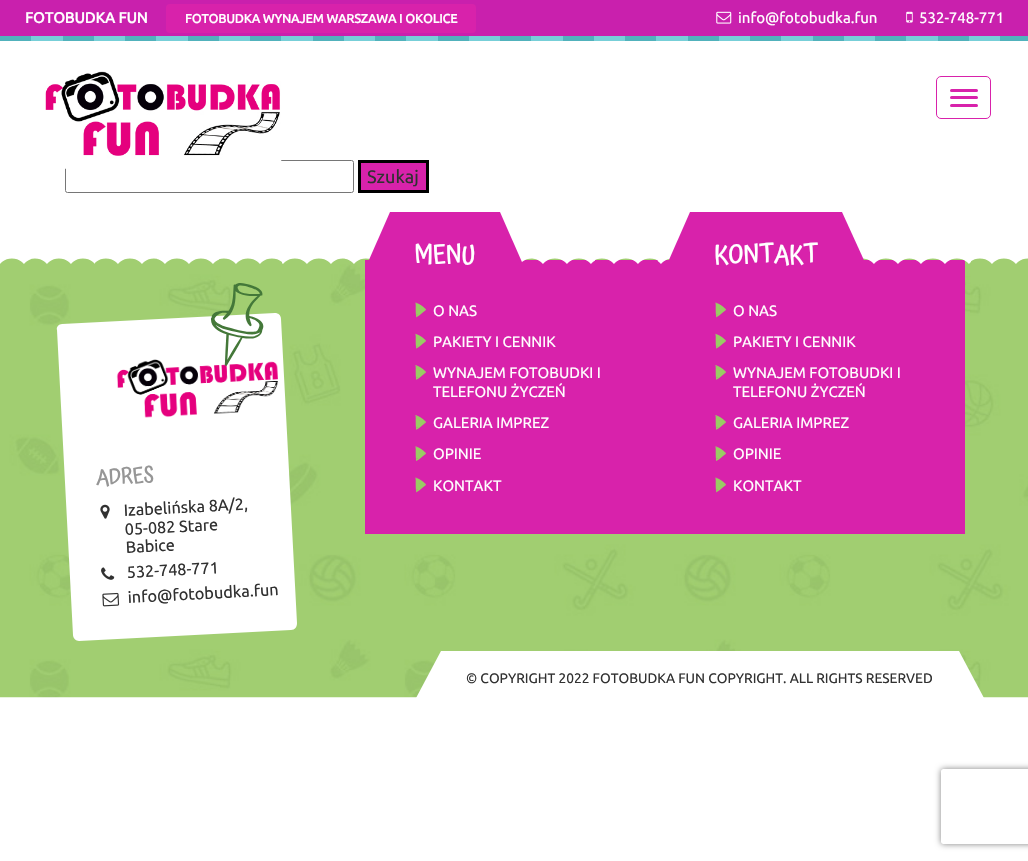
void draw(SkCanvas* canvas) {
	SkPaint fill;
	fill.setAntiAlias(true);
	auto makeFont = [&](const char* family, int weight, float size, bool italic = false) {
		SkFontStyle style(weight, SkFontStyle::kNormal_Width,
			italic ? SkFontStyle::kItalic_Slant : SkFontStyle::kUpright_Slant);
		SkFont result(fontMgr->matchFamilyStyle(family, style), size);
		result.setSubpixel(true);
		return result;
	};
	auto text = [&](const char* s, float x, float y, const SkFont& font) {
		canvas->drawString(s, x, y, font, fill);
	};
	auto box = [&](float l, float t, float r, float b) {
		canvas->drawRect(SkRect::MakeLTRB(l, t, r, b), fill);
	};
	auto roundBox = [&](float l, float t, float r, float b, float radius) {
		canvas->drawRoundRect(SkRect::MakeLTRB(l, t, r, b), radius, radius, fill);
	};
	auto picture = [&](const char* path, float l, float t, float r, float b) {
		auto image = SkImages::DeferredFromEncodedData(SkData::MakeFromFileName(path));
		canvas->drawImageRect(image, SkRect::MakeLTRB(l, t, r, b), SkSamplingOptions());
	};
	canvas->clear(0xFFFFFFFF);
	fill.setColor(0xFFC920AD);
	box(0, 0, 1028, 36);
	fill.setColor(0xFFD822AB);
	roundBox(166, 4, 476, 33, 4);
	picture("image0.png", 716, 11, 732, 24);
	picture("image1.png", 906, 11, 913, 23);
	picture("image2.png", 0, 36, 1028, 41);
	fill.setStyle(SkPaint::kStroke_Style);
	fill.setStrokeWidth(1);
	fill.setColor(0xFF767676);
	canvas->drawRoundRect(SkRect::MakeLTRB(65.5f, 160.5f, 353.5f, 192.5f), 2, 2, fill);
	picture("image3.png", 45, 71, 282, 169);
	fill.setColor(0xFFD822AB);
	canvas->drawRoundRect(SkRect::MakeLTRB(936.5f, 76.5f, 990.5f, 118.5f), 4.5f, 4.5f, fill);
	fill.setStyle(SkPaint::kFill_Style);
	roundBox(950, 89, 978, 92, 1.5f);
	roundBox(950, 96, 978, 99, 1.5f);
	roundBox(950, 104, 978, 107, 1.5f);
	canvas->drawRect(SkRect::MakeLTRB(359.5f, 161.5f, 427.5f, 191.5f), fill);
	fill.setStyle(SkPaint::kStroke_Style);
	fill.setStrokeWidth(3);
	fill.setColor(0xFF000000);
	canvas->drawRect(SkRect::MakeLTRB(359.5f, 161.5f, 427.5f, 191.5f), fill);
	picture("image4.png", 0, 258, 1028, 698);
	fill.setStyle(SkPaint::kFill_Style);
	fill.setColor(0xFFD822AB);
	box(365, 260, 965, 534);
	picture("image14.png", 0, 255, 1028, 264);
	canvas->drawPath(SkPathBuilder().moveTo(525, 269).lineTo(365, 269).lineTo(390, 212).lineTo(500, 212).close().detach(), fill);
	picture("image5.png", 415, 302, 426, 318);
	picture("image6.png", 415, 333, 426, 349);
	picture("image7.png", 415, 365, 426, 380);
	picture("image7.png", 415, 415, 426, 430);
	picture("image8.png", 415, 446, 426, 461);
	picture("image5.png", 415, 477, 426, 493);
	canvas->drawPath(SkPathBuilder().moveTo(868, 269).lineTo(665, 269).lineTo(690, 212).lineTo(842, 212).close().detach(), fill);
	picture("image5.png", 715, 302, 726, 318);
	picture("image6.png", 715, 333, 726, 349);
	picture("image7.png", 715, 365, 726, 380);
	picture("image7.png", 715, 415, 726, 430);
	picture("image8.png", 715, 446, 726, 461);
	picture("image5.png", 715, 477, 726, 493);
	fill.setColor(0xFFFFFFFF);
	canvas->drawPath(SkPathBuilder().moveTo(62, 324).lineTo(275, 313).cubicTo(278, 313, 281, 315, 281, 319).lineTo(297, 623).cubicTo(297, 627, 295, 630, 291, 630).lineTo(79, 641).cubicTo(76, 641, 73, 638, 73, 635).lineTo(57, 330).cubicTo(56, 327, 59, 324, 62, 324).close().detach(), fill);
	picture("image10.png", 116, 359, 279, 418);
	picture("image9.png", 211, 283, 264, 366);
	picture("image11.png", 100, 504, 110, 519);
	picture("image12.png", 101, 567, 115, 580);
	picture("image13.png", 102, 592, 120, 607);
	canvas->drawPath(SkPathBuilder().moveTo(984, 698).lineTo(416, 698).lineTo(441, 651).lineTo(959, 651).close().detach(), fill);
	canvas->save();
	canvas->clipPath(SkPathBuilder(SkPathFillType::kEvenOdd).moveTo(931, 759).lineTo(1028, 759).lineTo(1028, 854).lineTo(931, 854).close().moveTo(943.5f, 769).lineTo(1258.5f, 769).cubicTo(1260, 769, 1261, 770, 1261, 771.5f).lineTo(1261, 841.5f).cubicTo(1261, 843, 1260, 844, 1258.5f, 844).lineTo(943.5f, 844).cubicTo(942, 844, 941, 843, 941, 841.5f).lineTo(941, 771.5f).cubicTo(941, 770, 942, 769, 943.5f, 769).close().detach(), true);
	fill.setColor(0xFF808080);
	fill.setMaskFilter(SkMaskFilter::MakeBlur(kNormal_SkBlurStyle, 3));
	canvas->drawRoundRect(SkRect::MakeLTRB(941, 769, 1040, 844), 2.5f, 2.5f, fill);
	fill.setMaskFilter(nullptr);
	canvas->restore();
	auto font1 = makeFont("Ubuntu", 700, 15);
	fill.setColor(0xFFFFFFFF);
	text("FOTOBUDKA FUN", 25, 23, font1);
	auto font2 = makeFont("Ubuntu", 700, 12.5f);
	text("FOTOBUDKA WYNAJEM WARSZAWA I OKOLICE", 185, 23, font2);
	auto font3 = makeFont("Ubuntu", 400, 15);
	text("info@fotobudka.fun", 738, 23, font3);
	text("532-748-771", 919, 23, font3);
	auto font4 = makeFont("Ubuntu", 400, 18);
	fill.setColor(0xFF313131);
	text("Szukaj", 367, 183, font4);
	auto font5 = makeFont("Atma", 700, 25);
	fill.setColor(0xFFFFFFFF);
	text("MENU", 414, 263, font5);
	text("O NAS", 433, 316, font3);
	text("PAKIETY I CENNIK", 433, 347, font3);
	text("WYNAJEM FOTOBUDKI I", 433, 378, font3);
	text("TELEFONU ŻYCZEŃ", 433, 397, font3);
	text("GALERIA IMPREZ", 433, 428, font3);
	text("OPINIE", 433, 459, font3);
	text("KONTAKT", 433, 491, font3);
	text("KONTAKT", 714, 263, font5);
	text("O NAS", 733, 316, font3);
	text("PAKIETY I CENNIK", 733, 347, font3);
	text("WYNAJEM FOTOBUDKI I", 733, 378, font3);
	text("TELEFONU ŻYCZEŃ", 733, 397, font3);
	text("GALERIA IMPREZ", 733, 428, font3);
	text("OPINIE", 733, 459, font3);
	text("KONTAKT", 733, 491, font3);
	auto font6 = makeFont("Atma", 700, 21);
	fill.setColor(0xFF969696);
	canvas->save();
	canvas->rotate(-3, 96, 485);
	text("ADRES", 96, 485, font6);
	canvas->restore();
	auto font7 = makeFont("Ubuntu", 400, 16.25f);
	fill.setColor(0xFF313131);
	canvas->save();
	canvas->rotate(-3, 124, 516);
	text("Izabelińska 8A/2,", 124, 516, font7);
	canvas->restore();
	canvas->save();
	canvas->rotate(-3, 125, 535);
	text("05-082 Stare", 125, 535, font7);
	canvas->restore();
	canvas->save();
	canvas->rotate(-3, 126, 553);
	text("Babice", 126, 553, font7);
	canvas->restore();
	canvas->save();
	canvas->rotate(-3, 127, 578);
	text("532-748-771", 127, 578, font7);
	canvas->restore();
	canvas->save();
	canvas->rotate(-3, 128, 603);
	text("info@fotobudka.fun", 128, 603, font7);
	canvas->restore();
	auto font8 = makeFont("Ubuntu", 400, 13.75f);
	text("© COPYRIGHT 2022 FOTOBUDKA FUN COPYRIGHT. ALL RIGHTS RESERVED", 466, 683, font8);
}
